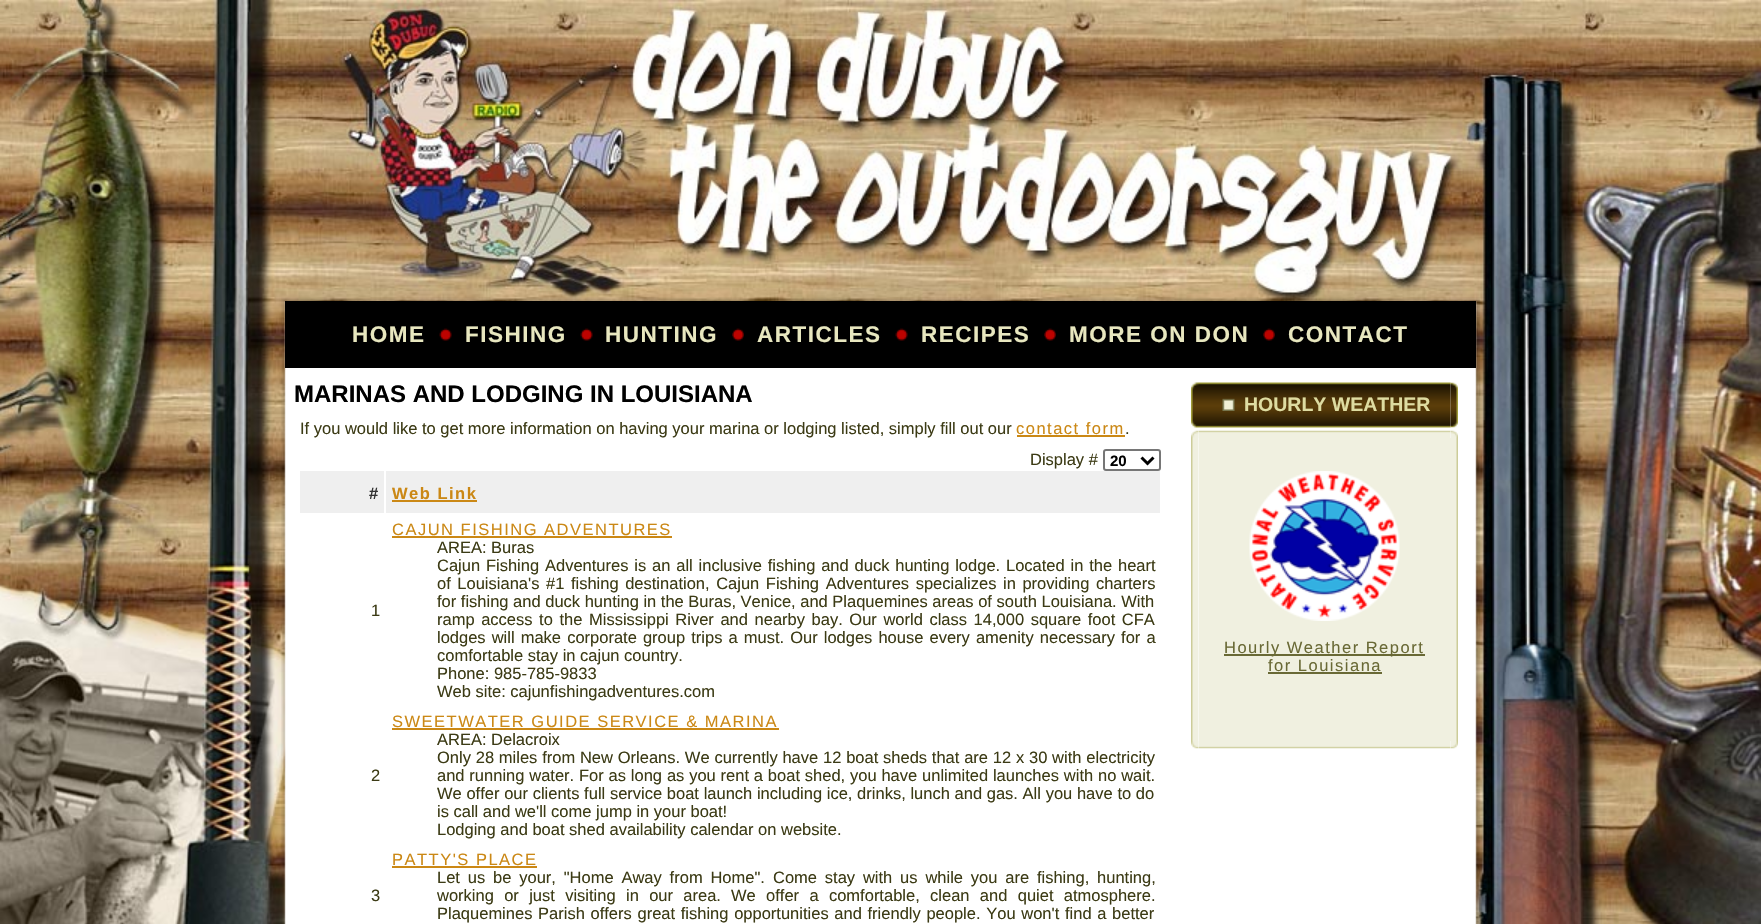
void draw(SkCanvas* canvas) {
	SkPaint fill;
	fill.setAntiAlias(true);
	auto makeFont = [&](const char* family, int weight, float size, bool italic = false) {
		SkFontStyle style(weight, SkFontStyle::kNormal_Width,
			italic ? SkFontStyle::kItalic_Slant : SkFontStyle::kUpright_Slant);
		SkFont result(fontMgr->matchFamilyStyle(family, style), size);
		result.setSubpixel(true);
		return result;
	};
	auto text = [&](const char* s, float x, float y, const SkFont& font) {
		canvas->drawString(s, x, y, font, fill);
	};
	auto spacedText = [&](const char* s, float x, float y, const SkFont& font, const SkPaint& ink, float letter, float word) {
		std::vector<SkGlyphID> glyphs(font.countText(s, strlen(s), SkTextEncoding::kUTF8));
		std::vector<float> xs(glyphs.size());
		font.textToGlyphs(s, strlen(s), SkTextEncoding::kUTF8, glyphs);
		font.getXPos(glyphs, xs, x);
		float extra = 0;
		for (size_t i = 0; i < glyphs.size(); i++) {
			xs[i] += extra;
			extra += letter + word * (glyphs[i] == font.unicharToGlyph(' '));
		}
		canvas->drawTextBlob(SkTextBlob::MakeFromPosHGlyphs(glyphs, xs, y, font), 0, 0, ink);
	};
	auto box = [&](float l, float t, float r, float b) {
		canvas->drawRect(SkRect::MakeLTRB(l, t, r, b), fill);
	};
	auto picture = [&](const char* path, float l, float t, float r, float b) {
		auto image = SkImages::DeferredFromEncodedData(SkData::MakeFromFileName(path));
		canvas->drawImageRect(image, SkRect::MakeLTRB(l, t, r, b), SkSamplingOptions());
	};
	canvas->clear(0xFFFFFFFF);
	picture("image0.png", 0, 0, 1761, 924);
	picture("image1.png", 281, 297, 300, 317);
	picture("image2.png", 300, 297, 1461, 301);
	picture("image3.png", 1461, 297, 1481, 317);
	picture("image4.png", 281, 316, 300, 924);
	picture("image21.png", 1461, 316, 1481, 924);
	fill.setColor(0xFF000000);
	box(285, 301, 1476, 368);
	picture("image5.png", 439, 328, 452, 341);
	picture("image5.png", 580, 328, 593, 341);
	picture("image6.png", 732, 328, 744, 341);
	picture("image7.png", 895, 328, 908, 341);
	picture("image6.png", 1044, 328, 1056, 341);
	picture("image8.png", 1263, 328, 1275, 341);
	fill.setColor(0xFFFFFFFF);
	box(300, 368, 1461, 924);
	fill.setColor(0xFFCB8815);
	box(1017, 435, 1125, 437);
	fill.setStyle(SkPaint::kStroke_Style);
	fill.setStrokeWidth(2);
	fill.setColor(0xFF767676);
	canvas->drawRoundRect(SkRect::MakeLTRB(1104, 450, 1160, 470), 2, 2, fill);
	fill.setStrokeWidth(3);
	fill.setColor(0xFF000000);
	canvas->drawPath(SkPathBuilder().moveTo(1141.5f, 457.5f).lineTo(1147.5f, 463.5f).lineTo(1153.5f, 457.5f).detach(), fill);
	fill.setStyle(SkPaint::kFill_Style);
	fill.setColor(0xFFEFEFEF);
	box(300, 471, 384, 513);
	box(386, 471, 1160, 513);
	fill.setColor(0xFFCB8815);
	box(392, 500, 477, 502);
	box(392, 536, 672, 538);
	box(392, 728, 779, 730);
	box(392, 866, 537, 868);
	picture("image9.png", 1191, 382, 1451, 428);
	picture("image10.png", 1450, 382, 1458, 428);
	picture("image11.png", 1222, 398, 1235, 411);
	picture("image12.png", 1191, 430, 1199, 438);
	picture("image14.png", 1450, 430, 1458, 438);
	picture("image13.png", 1198, 430, 1451, 438);
	picture("image15.png", 1191, 438, 1199, 741);
	fill.setColor(0xFFF0F0E0);
	box(1199, 438, 1451, 741);
	picture("image16.png", 1451, 438, 1458, 741);
	picture("image17.png", 1249, 471, 1400, 621);
	fill.setColor(0xFF696935);
	box(1224, 654, 1425, 656);
	box(1268, 672, 1382, 674);
	picture("image18.png", 1191, 741, 1199, 749);
	picture("image20.png", 1450, 741, 1458, 749);
	picture("image19.png", 1198, 741, 1451, 749);
	auto font1 = makeFont("Liberation Sans", 700, 22.5f);
	fill.setColor(0xFFE8E7BF);
	spacedText("HOME", 352, 342, font1, fill, 1.5f, 0);
	spacedText("FISHING", 465, 342, font1, fill, 1.5f, 0);
	spacedText("HUNTING", 605, 342, font1, fill, 1.5f, 0);
	spacedText("ARTICLES", 757, 342, font1, fill, 1.5f, 0);
	spacedText("RECIPES", 921, 342, font1, fill, 1.5f, 0);
	spacedText("MORE ON DON", 1069, 342, font1, fill, 1.5f, 0);
	spacedText("CONTACT", 1288, 342, font1, fill, 1.5f, 0);
	auto font2 = makeFont("Liberation Sans", 700, 24);
	fill.setColor(0xFF000000);
	text("MARINAS AND LODGING IN LOUISIANA", 294, 402, font2);
	auto font3 = makeFont("Liberation Sans", 400, 16.5f);
	fill.setColor(0xFF3C3B15);
	text("If you would like to get more information on having your marina or lodging listed, simply fill out our", 300, 434, font3);
	fill.setColor(0xFFCB8815);
	spacedText("contact form", 1016, 434, font3, fill, 1.5f, 0);
	fill.setColor(0xFF3C3B15);
	text(".", 1125, 434, font3);
	text("Display #", 1030, 465, font3);
	auto font4 = makeFont("Liberation Sans", 700, 15);
	fill.setColor(0xFF000000);
	text("20", 1110, 466, font4);
	auto font5 = makeFont("Liberation Sans", 700, 16.5f);
	fill.setColor(0xFF333333);
	text("#", 369, 499, font5);
	fill.setColor(0xFFCB8815);
	spacedText("Web Link", 392, 499, font5, fill, 1.5f, 0);
	fill.setColor(0xFF3C3B15);
	text("1", 371, 616, font3);
	fill.setColor(0xFFCB8815);
	spacedText("CAJUN FISHING ADVENTURES", 392, 535, font3, fill, 1.5f, 0);
	fill.setColor(0xFF3C3B15);
	text("AREA: Buras", 437, 553, font3);
	spacedText("Cajun Fishing Adventures is an all inclusive fishing and duck hunting lodge. Located in the heart", 437, 571, font3, fill, 0, 1.25f);
	spacedText("of Louisiana's #1 fishing destination, Cajun Fishing Adventures specializes in providing charters", 437, 589, font3, fill, 0, 2);
	text("for fishing and duck hunting in the Buras, Venice, and Plaquemines areas of south Louisiana. With", 437, 607, font3);
	spacedText("ramp access to the Mississippi River and nearby bay. Our world class 14,000 square foot CFA", 437, 625, font3, fill, 0, 2);
	spacedText("lodges will make corporate group trips a must. Our lodges house every amenity necessary for a", 437, 643, font3, fill, 0, 1.5f);
	text("comfortable stay in cajun country.", 437, 661, font3);
	text("Phone: 985-785-9833", 437, 679, font3);
	text("Web site: cajunfishingadventures.com", 437, 697, font3);
	text("2", 371, 781, font3);
	fill.setColor(0xFFCB8815);
	spacedText("SWEETWATER GUIDE SERVICE & MARINA", 392, 727, font3, fill, 1.5f, 0);
	fill.setColor(0xFF3C3B15);
	text("AREA: Delacroix", 437, 745, font3);
	spacedText("Only 28 miles from New Orleans. We currently have 12 boat sheds that are 12 x 30 with electricity", 437, 763, font3, fill, 0, 0.2f);
	spacedText("and running water. For as long as you rent a boat shed, you have unlimited launches with no wait.", 437, 781, font3, fill, 0, 0.25f);
	spacedText("We offer our clients full service boat launch including ice, drinks, lunch and gas. All you have to do", 437, 799, font3, fill, 0, 0.1f);
	text("is call and we'll come jump in your boat!", 437, 817, font3);
	text("Lodging and boat shed availability calendar on website.", 437, 835, font3);
	text("3", 371, 901, font3);
	fill.setColor(0xFFCB8815);
	spacedText("PATTY'S PLACE", 392, 865, font3, fill, 1.5f, 0);
	fill.setColor(0xFF3C3B15);
	spacedText("Let us be your, \"Home Away from Home\".", 437, 883, font3, fill, 0, 3.25f);
	spacedText("Come stay with us while you are fishing, hunting,", 773, 883, font3, fill, 0, 3.25f);
	spacedText("working or just visiting in our area.", 437, 901, font3, fill, 0, 5.75f);
	spacedText("We offer a comfortable, clean and quiet atmosphere.", 731, 901, font3, fill, 0, 5.75f);
	spacedText("Plaquemines Parish offers great fishing opportunities and friendly people. You won't find a better", 437, 919, font3, fill, 0, 1.1f);
	auto font6 = makeFont("Liberation Sans", 700, 19.5f);
	fill.setColor(0xFFDEDCA1);
	text("HOURLY WEATHER", 1244, 411, font6);
	fill.setColor(0xFF696935);
	spacedText("Hourly Weather Report", 1224, 653, font3, fill, 1.5f, 0);
	spacedText("for Louisiana", 1268, 671, font3, fill, 1.5f, 0);
}
